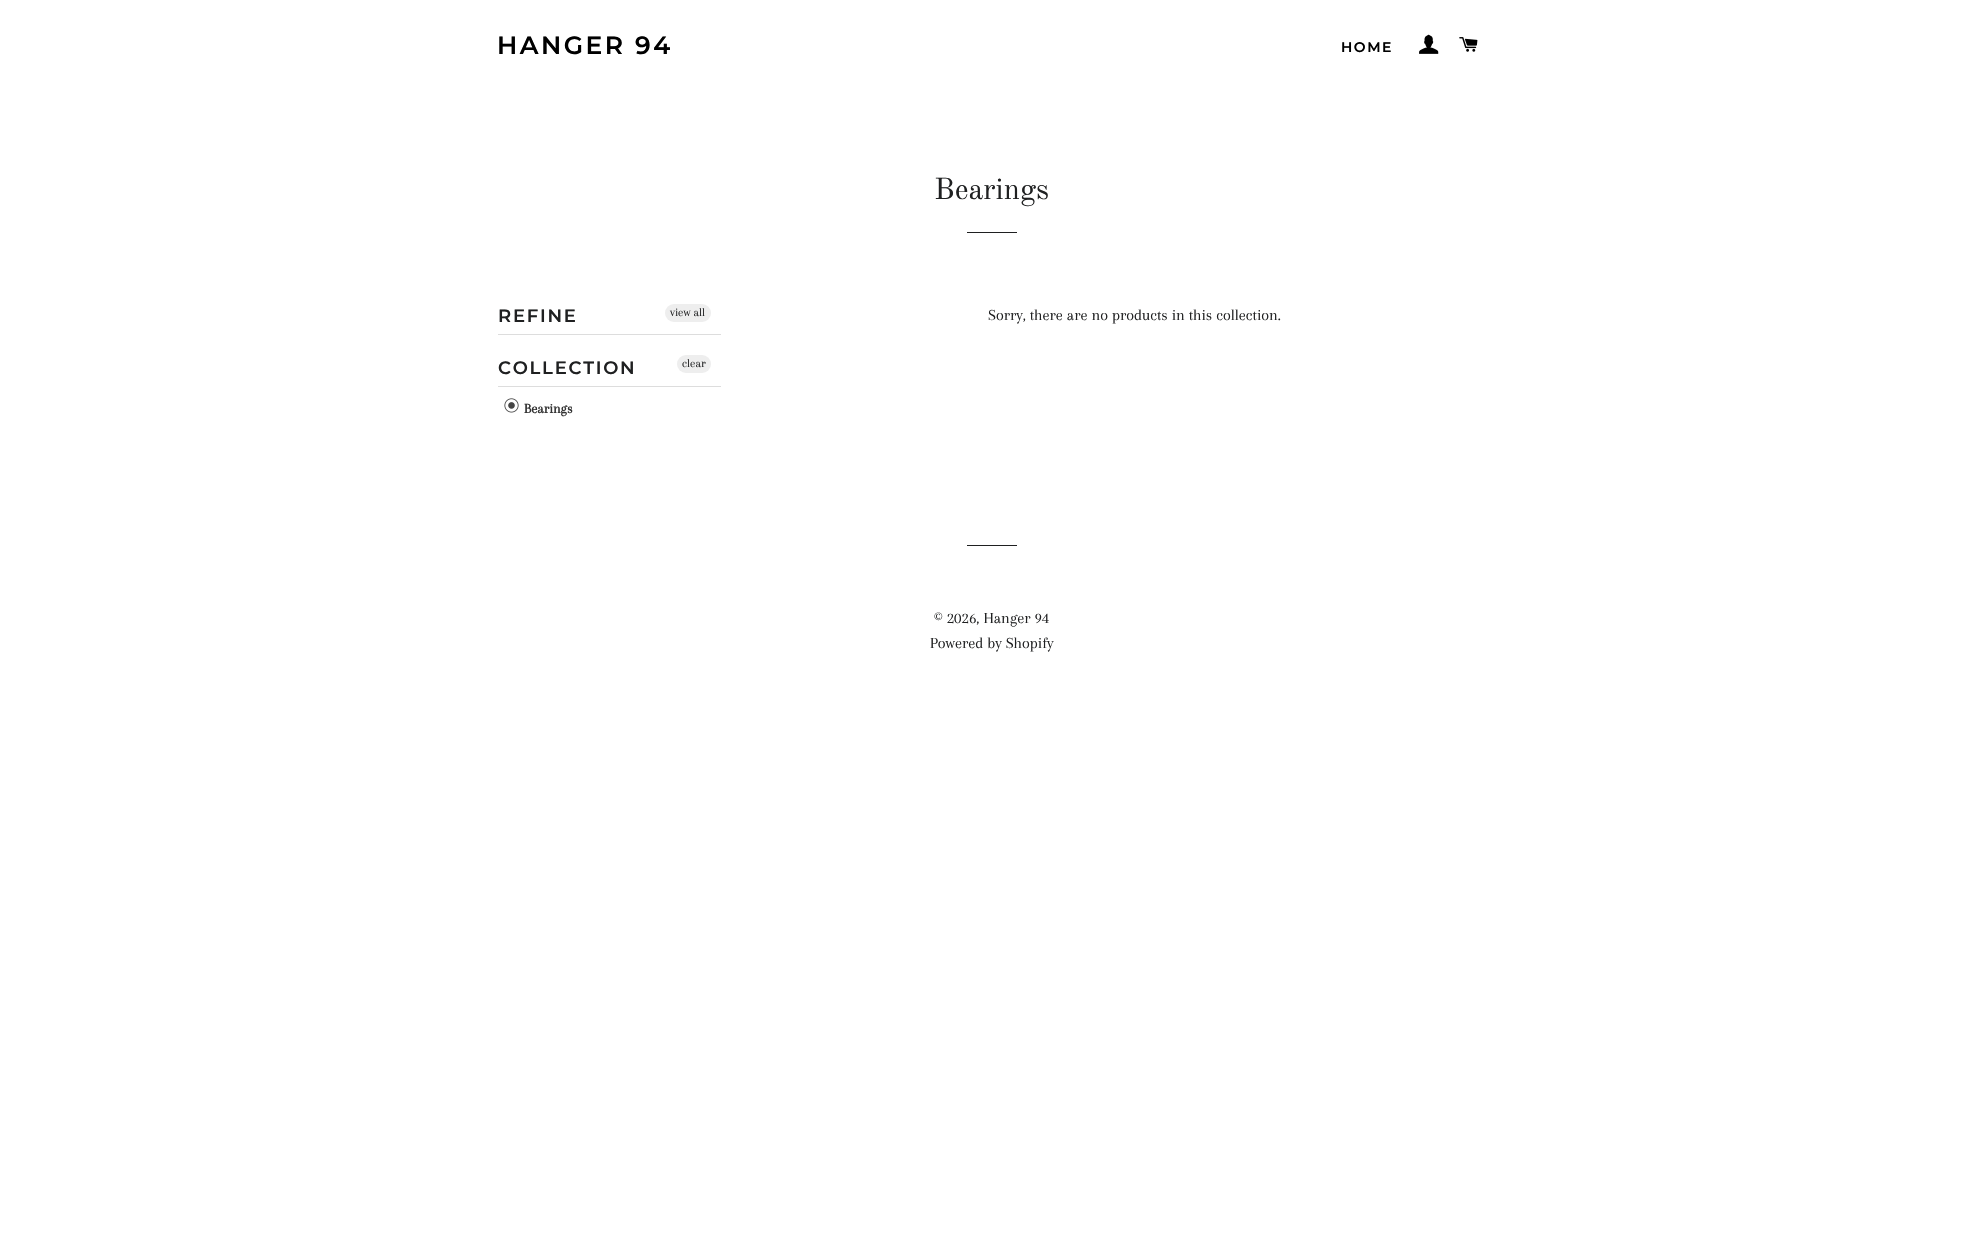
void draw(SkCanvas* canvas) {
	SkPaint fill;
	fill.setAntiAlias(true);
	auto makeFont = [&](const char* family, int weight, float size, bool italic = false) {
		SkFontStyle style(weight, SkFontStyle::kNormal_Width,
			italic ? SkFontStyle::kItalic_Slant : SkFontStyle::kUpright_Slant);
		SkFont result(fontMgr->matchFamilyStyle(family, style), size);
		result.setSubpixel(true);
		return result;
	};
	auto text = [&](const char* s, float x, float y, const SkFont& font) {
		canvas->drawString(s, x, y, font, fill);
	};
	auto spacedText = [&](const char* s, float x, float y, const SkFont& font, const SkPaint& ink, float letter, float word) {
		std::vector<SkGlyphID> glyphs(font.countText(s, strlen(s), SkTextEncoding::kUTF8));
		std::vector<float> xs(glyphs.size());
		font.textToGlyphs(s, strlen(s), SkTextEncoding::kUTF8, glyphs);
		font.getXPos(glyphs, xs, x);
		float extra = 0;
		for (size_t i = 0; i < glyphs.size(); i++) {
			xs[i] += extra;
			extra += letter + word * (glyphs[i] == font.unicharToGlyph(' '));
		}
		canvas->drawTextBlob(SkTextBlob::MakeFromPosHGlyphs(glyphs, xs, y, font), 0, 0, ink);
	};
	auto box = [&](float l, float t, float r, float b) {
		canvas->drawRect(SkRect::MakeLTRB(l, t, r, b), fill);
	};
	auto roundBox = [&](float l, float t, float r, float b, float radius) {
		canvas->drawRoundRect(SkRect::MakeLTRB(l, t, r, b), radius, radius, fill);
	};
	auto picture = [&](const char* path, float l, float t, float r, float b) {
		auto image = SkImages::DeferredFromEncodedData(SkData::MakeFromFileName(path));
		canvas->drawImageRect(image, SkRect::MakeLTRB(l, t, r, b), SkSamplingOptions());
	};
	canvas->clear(0xFFFFFFFF);
	picture("image0.png", 1419, 34, 1439, 54);
	picture("image1.png", 1459, 37, 1478, 52);
	fill.setColor(0xFF1F2021);
	box(967, 232, 1017, 233);
	fill.setColor(0xFFDDDDDD);
	box(498, 334, 721, 335);
	fill.setColor(0xFFEEEEEE);
	roundBox(665, 304, 711, 322, 9);
	roundBox(677, 355, 711, 373, 9);
	picture("image2.png", 504, 398, 519, 413);
	fill.setColor(0xFFDDDDDD);
	box(498, 386, 721, 387);
	fill.setColor(0xFF1F2021);
	box(967, 545, 1017, 546);
	auto font1 = makeFont("Montserrat", 600, 25);
	fill.setColor(0xFF000000);
	spacedText("HANGER 94", 497, 54, font1, fill, 2.5f, 0);
	auto font2 = makeFont("Montserrat", 600, 14);
	spacedText("HOME", 1341, 52, font2, fill, 1.5f, 0);
	auto font3 = makeFont("Old Standard TT", 400, 30);
	fill.setColor(0xFF1F2021);
	text("Bearings", 934, 199, font3);
	auto font4 = makeFont("Montserrat", 600, 18);
	spacedText("REFINE", 498, 322, font4, fill, 1.75f, 0);
	auto font5 = makeFont("Arapey", 400, 12);
	text("view all", 670, 316, font5);
	text("clear", 682, 367, font5);
	auto font6 = makeFont("Arapey", 700, 14);
	fill.setColor(0xFF333333);
	text("Bearings", 524, 413, font6);
	fill.setColor(0xFF1F2021);
	spacedText("COLLECTION", 498, 374, font4, fill, 1.75f, 0);
	auto font7 = makeFont("Arapey", 400, 16);
	text("Sorry, there are no products in this collection.", 988, 320, font7);
	text("© 2026, Hanger 94", 934, 623, font7);
	text("Powered by Shopify", 930, 648, font7);
}
